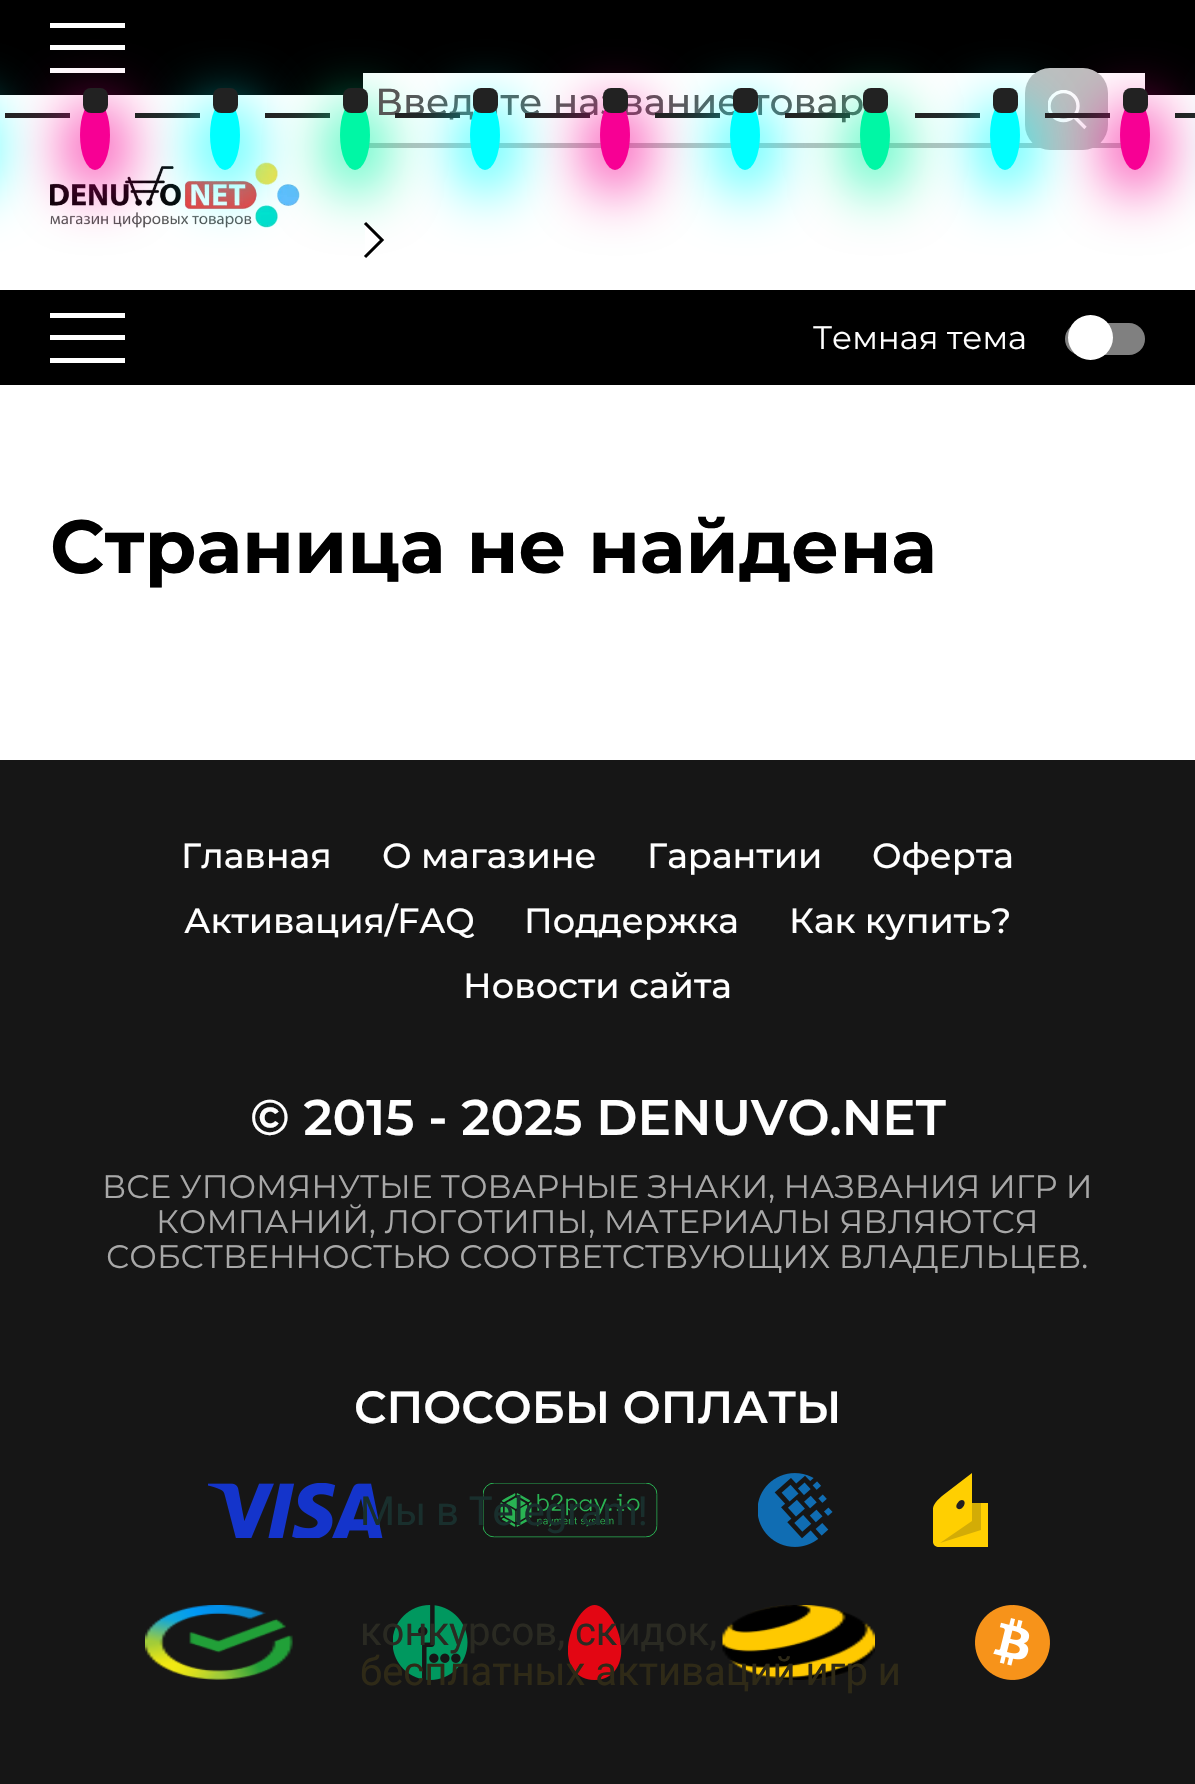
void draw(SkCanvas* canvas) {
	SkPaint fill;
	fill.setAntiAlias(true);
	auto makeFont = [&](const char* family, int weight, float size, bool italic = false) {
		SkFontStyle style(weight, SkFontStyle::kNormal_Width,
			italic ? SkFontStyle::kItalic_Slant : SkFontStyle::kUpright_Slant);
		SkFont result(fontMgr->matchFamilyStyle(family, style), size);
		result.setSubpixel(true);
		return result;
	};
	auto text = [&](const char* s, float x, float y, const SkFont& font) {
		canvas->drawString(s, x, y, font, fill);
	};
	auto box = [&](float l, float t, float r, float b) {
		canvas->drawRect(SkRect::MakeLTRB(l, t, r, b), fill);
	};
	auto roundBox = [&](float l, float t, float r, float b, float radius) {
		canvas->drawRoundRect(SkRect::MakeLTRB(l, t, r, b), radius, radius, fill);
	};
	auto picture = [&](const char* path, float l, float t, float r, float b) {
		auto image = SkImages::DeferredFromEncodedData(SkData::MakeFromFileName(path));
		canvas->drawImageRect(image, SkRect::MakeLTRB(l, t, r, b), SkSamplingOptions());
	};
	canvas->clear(0xFFFFFFFF);
	fill.setColor(0xFF000000);
	box(0, 0, 1195, 95);
	fill.setColor(0xFFFFFFFF);
	box(50, 23, 125, 28);
	box(50, 45, 125, 50);
	box(50, 68, 125, 73);
	picture("image0.png", 50, 162, 300, 228);
	fill.setColor(0xFF00FFFF);
	fill.setMaskFilter(SkMaskFilter::MakeBlur(kNormal_SkBlurStyle, 30));
	canvas->drawRoundRect(SkRect::MakeLTRB(-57, 105, -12, 190), 22.5f, 22.5f, fill);
	fill.setMaskFilter(nullptr);
	fill.setColor(0xFF222222);
	box(5, 113, 70, 118);
	fill.setColor(0xFFF70094);
	fill.setMaskFilter(SkMaskFilter::MakeBlur(kNormal_SkBlurStyle, 30));
	canvas->drawRoundRect(SkRect::MakeLTRB(73, 105, 118, 190), 22.5f, 22.5f, fill);
	fill.setMaskFilter(nullptr);
	canvas->drawOval(SkRect::MakeLTRB(80, 100, 110, 170), fill);
	fill.setColor(0xFF222222);
	roundBox(83, 88, 108, 113, 8);
	box(135, 113, 200, 118);
	fill.setColor(0xFF00FFFF);
	fill.setMaskFilter(SkMaskFilter::MakeBlur(kNormal_SkBlurStyle, 30));
	canvas->drawRoundRect(SkRect::MakeLTRB(203, 105, 248, 190), 22.5f, 22.5f, fill);
	fill.setMaskFilter(nullptr);
	canvas->drawOval(SkRect::MakeLTRB(210, 100, 240, 170), fill);
	fill.setColor(0xFF222222);
	roundBox(213, 88, 238, 113, 8);
	box(265, 113, 330, 118);
	fill.setColor(0xFFFFFFFF);
	box(363, 73, 1145, 95);
	fill.setColor(0xFFBEBEBE);
	box(363, 143, 1122, 148);
	fill.setColor(0xFF00F7A5);
	fill.setMaskFilter(SkMaskFilter::MakeBlur(kNormal_SkBlurStyle, 30));
	canvas->drawRoundRect(SkRect::MakeLTRB(333, 105, 378, 190), 22.5f, 22.5f, fill);
	fill.setMaskFilter(nullptr);
	canvas->drawOval(SkRect::MakeLTRB(340, 100, 370, 170), fill);
	fill.setColor(0xFF222222);
	roundBox(343, 88, 368, 113, 8);
	fill.setColor(0xFFBEBEBE);
	roundBox(1025, 68, 1108, 150, 25);
	canvas->save();
	canvas->clipRect(SkRect::MakeLTRB(1048, 90, 1088, 130));
	fill.setStyle(SkPaint::kStroke_Style);
	fill.setStrokeWidth(3.4f);
	fill.setColor(0xFFFFFFFF);
	canvas->drawCircle(1063.5f, 106, 14.5f, fill);
	canvas->restore();
	canvas->drawPath(SkPathBuilder().moveTo(1074, 116.5f).lineTo(1085.5f, 128).detach(), fill);
	fill.setStyle(SkPaint::kFill_Style);
	fill.setColor(0xFF000000);
	box(0, 290, 1195, 385);
	fill.setColor(0xFFFFFFFF);
	box(50, 313, 125, 318);
	box(50, 335, 125, 340);
	box(50, 358, 125, 363);
	fill.setColor(0xFF808080);
	roundBox(1065, 323, 1145, 355, 16);
	fill.setColor(0xFFFFFFFF);
	canvas->drawCircle(1090.5f, 337.5f, 22.5f, fill);
	fill.setColor(0xFF161616);
	box(0, 760, 1195, 1784);
	picture("image1.png", 208, 1483, 383, 1538);
	picture("image2.png", 483, 1483, 658, 1538);
	picture("image3.png", 758, 1473, 833, 1547);
	canvas->save();
	canvas->clipRect(SkRect::MakeLTRB(933, 1473, 988, 1548));
	fill.setColor(0xFFFFCF01);
	canvas->drawPath(SkPathBuilder(SkPathFillType::kEvenOdd).moveTo(933, 1510).cubicTo(933, 1506, 934, 1503, 942, 1496).lineTo(972, 1473).lineTo(972, 1503).lineTo(990, 1503).lineTo(990, 1547).lineTo(939, 1547).cubicTo(936, 1547, 933, 1545, 933, 1542).close().detach(), fill);
	canvas->restore();
	fill.setColor(0xFFD3AC06);
	canvas->drawPath(SkPathBuilder(SkPathFillType::kEvenOdd).moveTo(972, 1503).lineTo(972, 1521).lineTo(940, 1543).lineTo(981, 1530).lineTo(981, 1503).close().detach(), fill);
	fill.setColor(0xFF231F20);
	canvas->drawPath(SkPathBuilder(SkPathFillType::kEvenOdd).moveTo(958, 1502.5f).cubicTo(962, 1497, 967.5f, 1501.5f, 963, 1507).cubicTo(959, 1512, 953.5f, 1507.5f, 958, 1502.5f).close().detach(), fill);
	picture("image4.png", 145, 1605, 293, 1680);
	picture("image5.png", 393, 1605, 468, 1680);
	picture("image6.png", 568, 1605, 622, 1680);
	picture("image7.png", 722, 1605, 875, 1680);
	picture("image8.png", 975, 1605, 1050, 1680);
	auto font1 = makeFont("Montserrat", 500, 37.5f);
	fill.setColor(0xFF575757);
	text("Введите название товар", 375, 115, font1);
	fill.setColor(0xFF222222);
	box(395, 113, 460, 118);
	fill.setColor(0xFF00FFFF);
	fill.setMaskFilter(SkMaskFilter::MakeBlur(kNormal_SkBlurStyle, 30));
	canvas->drawRoundRect(SkRect::MakeLTRB(463, 105, 508, 190), 22.5f, 22.5f, fill);
	fill.setMaskFilter(nullptr);
	fill.setColor(0xFF222222);
	box(525, 113, 590, 118);
	fill.setColor(0xFFF70094);
	fill.setMaskFilter(SkMaskFilter::MakeBlur(kNormal_SkBlurStyle, 30));
	canvas->drawRoundRect(SkRect::MakeLTRB(593, 105, 638, 190), 22.5f, 22.5f, fill);
	fill.setMaskFilter(nullptr);
	fill.setColor(0xFF222222);
	box(655, 113, 720, 118);
	fill.setColor(0xFF00FFFF);
	fill.setMaskFilter(SkMaskFilter::MakeBlur(kNormal_SkBlurStyle, 30));
	canvas->drawRoundRect(SkRect::MakeLTRB(723, 105, 768, 190), 22.5f, 22.5f, fill);
	fill.setMaskFilter(nullptr);
	fill.setColor(0xFF222222);
	box(785, 113, 850, 118);
	fill.setColor(0xFF00F7A5);
	fill.setMaskFilter(SkMaskFilter::MakeBlur(kNormal_SkBlurStyle, 30));
	canvas->drawRoundRect(SkRect::MakeLTRB(853, 105, 898, 190), 22.5f, 22.5f, fill);
	fill.setMaskFilter(nullptr);
	fill.setColor(0xFF222222);
	box(915, 113, 980, 118);
	fill.setColor(0xFF00FFFF);
	fill.setMaskFilter(SkMaskFilter::MakeBlur(kNormal_SkBlurStyle, 30));
	canvas->drawRoundRect(SkRect::MakeLTRB(983, 105, 1028, 190), 22.5f, 22.5f, fill);
	fill.setMaskFilter(nullptr);
	fill.setColor(0xFF222222);
	box(1045, 113, 1110, 118);
	fill.setColor(0xFFF70094);
	fill.setMaskFilter(SkMaskFilter::MakeBlur(kNormal_SkBlurStyle, 30));
	canvas->drawRoundRect(SkRect::MakeLTRB(1113, 105, 1158, 190), 22.5f, 22.5f, fill);
	fill.setMaskFilter(nullptr);
	fill.setColor(0xFF222222);
	box(1175, 113, 1195, 118);
	fill.setColor(0xFF00FFFF);
	fill.setMaskFilter(SkMaskFilter::MakeBlur(kNormal_SkBlurStyle, 30));
	canvas->drawRoundRect(SkRect::MakeLTRB(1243, 105, 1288, 190), 22.5f, 22.5f, fill);
	fill.setMaskFilter(nullptr);
	fill.setColor(0xFFF70094);
	canvas->drawOval(SkRect::MakeLTRB(1120, 100, 1150, 170), fill);
	fill.setColor(0xFF222222);
	roundBox(1123, 88, 1148, 113, 8);
	fill.setColor(0xFF00FFFF);
	canvas->drawOval(SkRect::MakeLTRB(990, 100, 1020, 170), fill);
	fill.setColor(0xFF222222);
	roundBox(993, 88, 1018, 113, 8);
	fill.setColor(0xFF00F7A5);
	canvas->drawOval(SkRect::MakeLTRB(860, 100, 890, 170), fill);
	fill.setColor(0xFF222222);
	roundBox(863, 88, 888, 113, 8);
	fill.setColor(0xFF00FFFF);
	canvas->drawOval(SkRect::MakeLTRB(730, 100, 760, 170), fill);
	fill.setColor(0xFF222222);
	roundBox(733, 88, 758, 113, 8);
	fill.setColor(0xFFF70094);
	canvas->drawOval(SkRect::MakeLTRB(600, 100, 630, 170), fill);
	fill.setColor(0xFF222222);
	roundBox(603, 88, 628, 113, 8);
	fill.setColor(0xFF00FFFF);
	canvas->drawOval(SkRect::MakeLTRB(470, 100, 500, 170), fill);
	fill.setColor(0xFF222222);
	roundBox(473, 88, 498, 113, 8);
	fill.setColor(0xFFFFFFFF);
	canvas->drawPath(SkPathBuilder().moveTo(365, 257).lineTo(382, 240).lineTo(365, 223).detach(), fill);
	fill.setStyle(SkPaint::kStroke_Style);
	fill.setStrokeWidth(3.1f);
	fill.setColor(0xFF000000);
	canvas->drawPath(SkPathBuilder().moveTo(365, 257).lineTo(382, 240).lineTo(365, 223).detach(), fill);
	auto font2 = makeFont("Montserrat", 400, 32.5f);
	fill.setStyle(SkPaint::kFill_Style);
	fill.setColor(0xFFFFFFFF);
	text("Темная тема", 813, 349, font2);
	auto font3 = makeFont("Montserrat", 700, 75);
	fill.setColor(0xFF000000);
	text("Страница не найдена", 50, 573, font3);
	auto font4 = makeFont("Montserrat", 500, 35);
	fill.setColor(0xFFFFFFFF);
	text("Главная", 181, 868, font4);
	text("О магазине", 382, 868, font4);
	text("Гарантии", 647, 868, font4);
	text("Оферта", 872, 868, font4);
	text("Активация/FAQ", 184, 933, font4);
	text("Поддержка", 524, 933, font4);
	text("Как купить?", 789, 933, font4);
	text("Новости сайта", 463, 998, font4);
	auto font5 = makeFont("Montserrat", 600, 50);
	text("© 2015 - 2025 DENUVO.NET", 250, 1135, font5);
	fill.setColor(0xFFA8A8A8);
	text("ВСЕ УПОМЯНУТЫЕ ТОВАРНЫЕ ЗНАКИ, НАЗВАНИЯ ИГР И", 102, 1198, font2);
	text("КОМПАНИЙ, ЛОГОТИПЫ, МАТЕРИАЛЫ ЯВЛЯЮТСЯ", 156, 1233, font2);
	text("СОБСТВЕННОСТЬЮ СООТВЕТСТВУЮЩИХ ВЛАДЕЛЬЦЕВ.", 106, 1268, font2);
	auto font6 = makeFont("Montserrat", 600, 45);
	fill.setColor(0xFFFFFFFF);
	text("СПОСОБЫ ОПЛАТЫ", 354, 1423, font6);
	auto font7 = makeFont("Roboto", 400, 40);
	fill.setColor(0xFF192F2D);
	text("Мы в Telegram!", 360, 1525, font7);
	fill.setColor(0xFF2A2A22);
	text("конкурсов, скидок,", 360, 1645, font7);
	fill.setColor(0xFF2F2A17);
	text("бесплатных активаций игр и", 360, 1685, font7);
}
